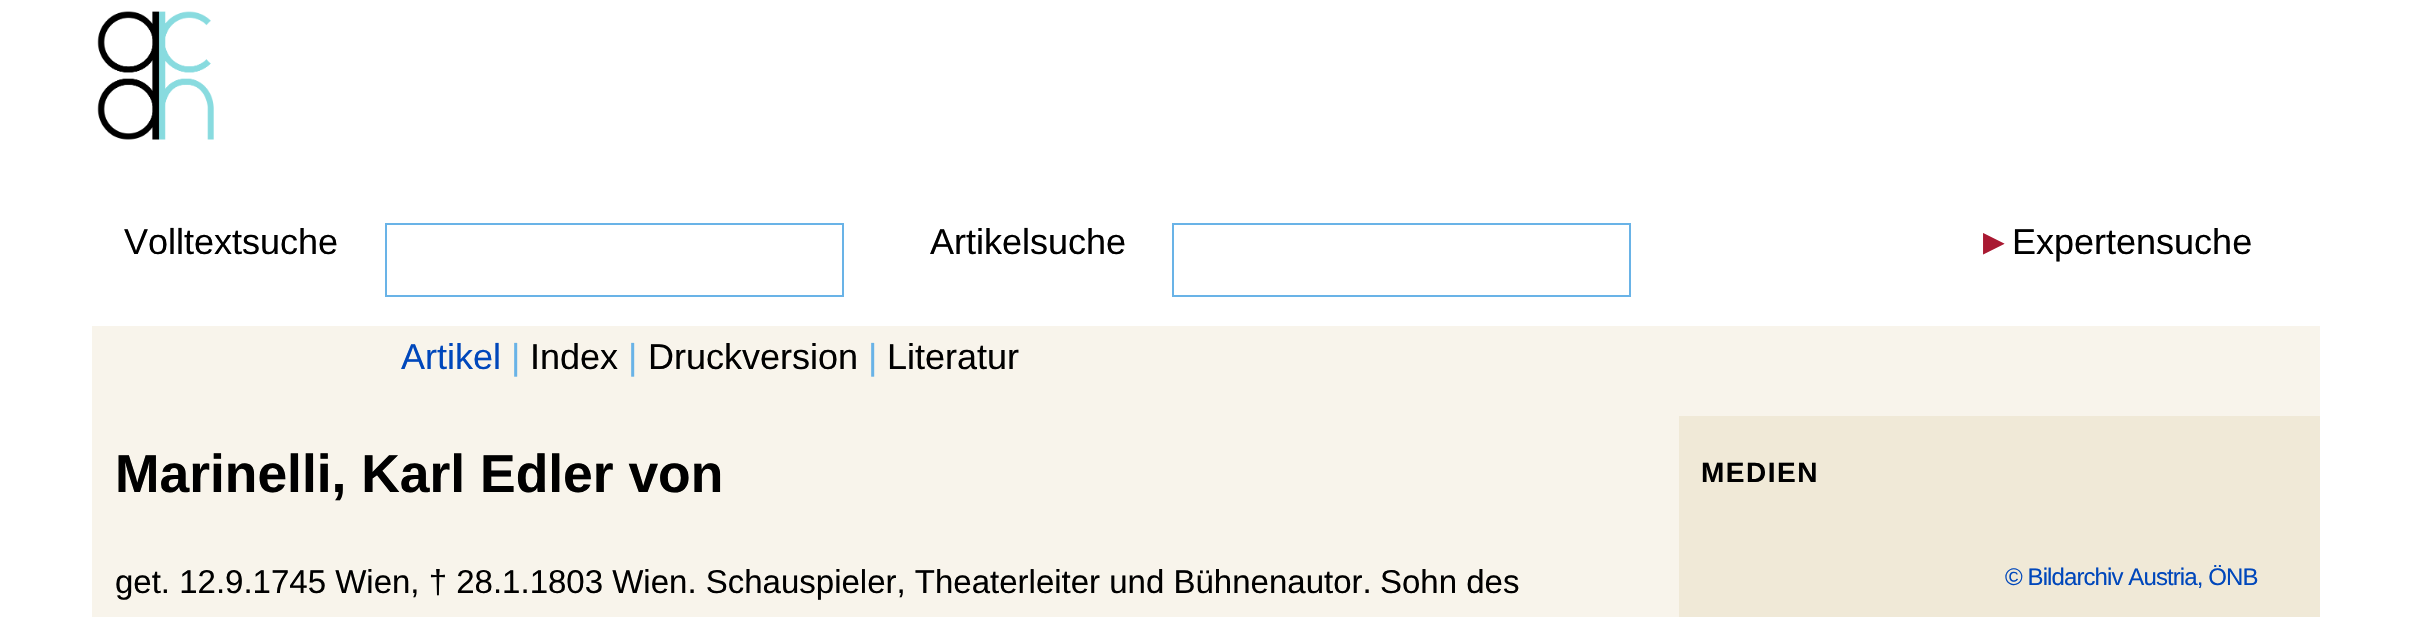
void draw(SkCanvas* canvas) {
	SkPaint fill;
	fill.setAntiAlias(true);
	auto makeFont = [&](const char* family, int weight, float size, bool italic = false) {
		SkFontStyle style(weight, SkFontStyle::kNormal_Width,
			italic ? SkFontStyle::kItalic_Slant : SkFontStyle::kUpright_Slant);
		SkFont result(fontMgr->matchFamilyStyle(family, style), size);
		result.setSubpixel(true);
		return result;
	};
	auto text = [&](const char* s, float x, float y, const SkFont& font) {
		canvas->drawString(s, x, y, font, fill);
	};
	auto spacedText = [&](const char* s, float x, float y, const SkFont& font, const SkPaint& ink, float letter, float word) {
		std::vector<SkGlyphID> glyphs(font.countText(s, strlen(s), SkTextEncoding::kUTF8));
		std::vector<float> xs(glyphs.size());
		font.textToGlyphs(s, strlen(s), SkTextEncoding::kUTF8, glyphs);
		font.getXPos(glyphs, xs, x);
		float extra = 0;
		for (size_t i = 0; i < glyphs.size(); i++) {
			xs[i] += extra;
			extra += letter + word * (glyphs[i] == font.unicharToGlyph(' '));
		}
		canvas->drawTextBlob(SkTextBlob::MakeFromPosHGlyphs(glyphs, xs, y, font), 0, 0, ink);
	};
	auto box = [&](float l, float t, float r, float b) {
		canvas->drawRect(SkRect::MakeLTRB(l, t, r, b), fill);
	};
	auto picture = [&](const char* path, float l, float t, float r, float b) {
		auto image = SkImages::DeferredFromEncodedData(SkData::MakeFromFileName(path));
		canvas->drawImageRect(image, SkRect::MakeLTRB(l, t, r, b), SkSamplingOptions());
	};
	canvas->clear(0xFFFFFFFF);
	picture("image0.png", 97, 11, 214, 140);
	fill.setStyle(SkPaint::kStroke_Style);
	fill.setStrokeWidth(2);
	fill.setColor(0xFF69B3E7);
	canvas->drawRect(SkRect::MakeLTRB(386, 224, 843, 296), fill);
	canvas->drawRect(SkRect::MakeLTRB(1173, 224, 1630, 296), fill);
	fill.setStyle(SkPaint::kFill_Style);
	fill.setColor(0xFFF8F4EB);
	box(92, 326, 1679, 617);
	fill.setColor(0xFFF0E9D7);
	box(1679, 416, 2320, 617);
	fill.setColor(0xFFF8F4EB);
	box(1679, 326, 2320, 416);
	auto font1 = makeFont("Liberation Sans", 400, 36);
	fill.setColor(0xFF000000);
	text("Volltextsuche", 124, 254, font1);
	text("Artikelsuche", 930, 254, font1);
	fill.setColor(0xFFA91932);
	text("►", 1976, 254, font1);
	fill.setColor(0xFF000000);
	text("Expertensuche", 2012, 254, font1);
	fill.setColor(0xFF0047BB);
	text("Artikel", 401, 369, font1);
	fill.setColor(0xFF69B3E7);
	text("|", 511, 369, font1);
	fill.setColor(0xFF000000);
	text("Index", 530, 369, font1);
	fill.setColor(0xFF69B3E7);
	text("|", 628, 369, font1);
	fill.setColor(0xFF000000);
	text("Druckversion", 648, 369, font1);
	fill.setColor(0xFF69B3E7);
	text("|", 868, 369, font1);
	fill.setColor(0xFF000000);
	text("Literatur", 887, 369, font1);
	auto font2 = makeFont("Liberation Sans", 700, 53.4f);
	text("Marinelli, Karl Edler von", 115, 492, font2);
	auto font3 = makeFont("Liberation Sans", 400, 33);
	text("get. 12.9.1745 Wien, † 28.1.1803 Wien. Schauspieler, Theaterleiter und Bühnenautor.", 115, 593, font3);
	text("Sohn des", 1380, 593, font3);
	auto font4 = makeFont("Liberation Sans", 700, 28);
	spacedText("MEDIEN", 1701, 482, font4, fill, 1.5f, 0);
	auto font5 = makeFont("Liberation Sans", 400, 24);
	fill.setColor(0xFF0047BB);
	spacedText("© Bildarchiv Austria, ÖNB", 2005, 585, font5, fill, -0.9f, 0);
}
